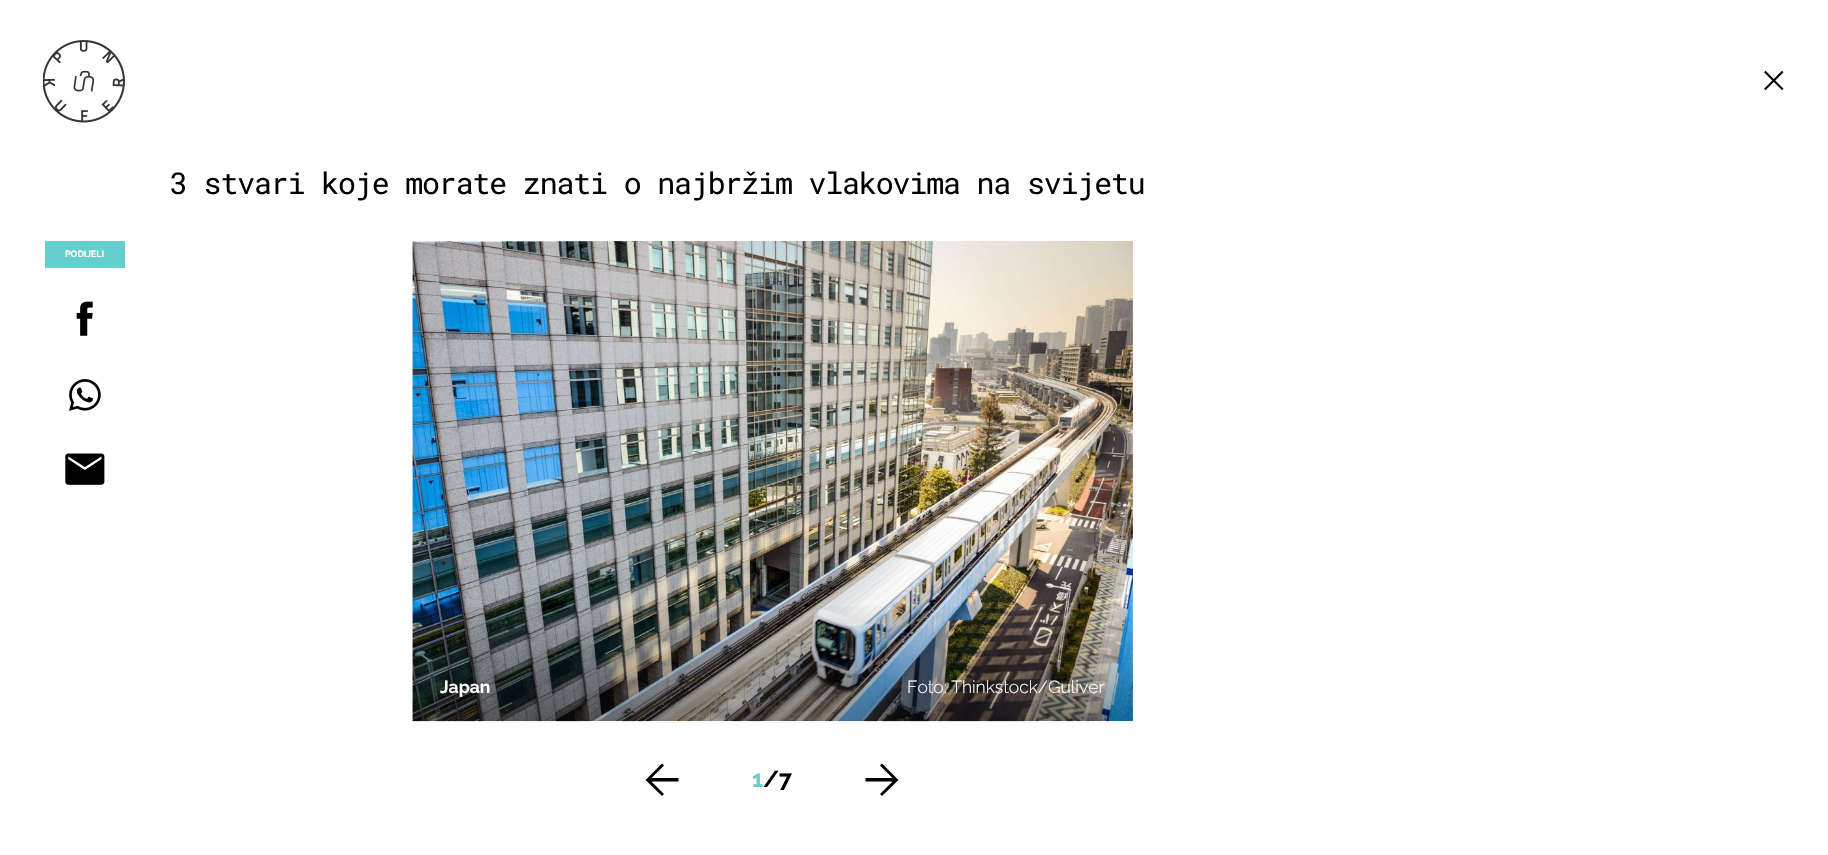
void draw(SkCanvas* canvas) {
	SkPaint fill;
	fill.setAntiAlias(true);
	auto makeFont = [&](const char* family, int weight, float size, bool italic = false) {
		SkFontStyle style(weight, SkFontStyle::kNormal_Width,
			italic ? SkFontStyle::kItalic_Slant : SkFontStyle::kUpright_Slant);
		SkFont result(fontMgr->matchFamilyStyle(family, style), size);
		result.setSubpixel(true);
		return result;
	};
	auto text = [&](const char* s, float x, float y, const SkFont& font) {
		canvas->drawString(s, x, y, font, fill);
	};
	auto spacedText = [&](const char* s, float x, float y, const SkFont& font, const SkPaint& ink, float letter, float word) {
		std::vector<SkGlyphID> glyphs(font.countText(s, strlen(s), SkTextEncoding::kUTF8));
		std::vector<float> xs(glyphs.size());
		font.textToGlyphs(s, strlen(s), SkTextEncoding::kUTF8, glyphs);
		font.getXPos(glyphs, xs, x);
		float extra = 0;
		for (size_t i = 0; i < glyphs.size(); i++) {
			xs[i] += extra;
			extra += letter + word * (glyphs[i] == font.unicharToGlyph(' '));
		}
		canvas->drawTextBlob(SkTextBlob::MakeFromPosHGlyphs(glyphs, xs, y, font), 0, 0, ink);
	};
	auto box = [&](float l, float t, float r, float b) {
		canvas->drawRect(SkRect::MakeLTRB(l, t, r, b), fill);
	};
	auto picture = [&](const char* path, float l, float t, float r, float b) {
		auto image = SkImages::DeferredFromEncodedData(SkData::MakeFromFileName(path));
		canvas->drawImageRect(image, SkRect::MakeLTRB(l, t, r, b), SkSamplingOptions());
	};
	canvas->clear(0xFFFFFFFF);
	picture("image0.png", 43, 40, 125, 123);
	picture("image1.png", 1764, 70, 1784, 91);
	fill.setColor(0xFF64CFCC);
	box(45, 241, 125, 268);
	picture("image2.png", 76, 301, 93, 336);
	picture("image3.png", 69, 379, 101, 411);
	picture("image4.png", 65, 453, 105, 485);
	picture("image5.png", 412, 241, 1133, 722);
	{
		const SkColor colors[] = {0x66141414, 0x00141414};
		const float stops[] = {0, 1};
		const SkPoint ends[] = {{773, 721}, {773, 599}};
		fill.setShader(SkGradientShader::MakeLinear(ends, colors, stops, 2, SkTileMode::kClamp));
		fill.setAlpha(255);
	}
	box(413, 606, 1133, 721);
	fill.setShader(nullptr);
	fill.setColor(0xFF000000);
	canvas->drawPath(SkPathBuilder().moveTo(662, 796).lineTo(664, 794).lineTo(651.5f, 781.5f).lineTo(678.5f, 781.5f).lineTo(678.5f, 778).lineTo(651.5f, 778).lineTo(664, 765.5f).lineTo(662, 763.5f).lineTo(645.5f, 780).close().detach(), fill);
	canvas->drawPath(SkPathBuilder().moveTo(882, 796).lineTo(880, 794).lineTo(892.5f, 781.5f).lineTo(865.5f, 781.5f).lineTo(865.5f, 778).lineTo(892.5f, 778).lineTo(880, 765.5f).lineTo(882, 763.5f).lineTo(898.5f, 780).close().detach(), fill);
	auto font1 = makeFont("Roboto Mono", 400, 30);
	spacedText("3 stvari koje morate znati o najbržim vlakovima na svijetu", 170, 194, font1, fill, -1.2f, 0);
	auto font2 = makeFont("Raleway", 700, 9);
	fill.setColor(0xFFFFFFFF);
	text("PODIJELI", 65, 257, font2);
	auto font3 = makeFont("Raleway", 700, 17.5f);
	text("Japan", 440, 693, font3);
	auto font4 = makeFont("Raleway", 300, 17.5f);
	text("Foto: Thinkstock/Guliver", 907, 693, font4);
	auto font5 = makeFont("Raleway", 700, 23);
	fill.setColor(0xFF64CFCC);
	text("1", 752, 787, font5);
	fill.setColor(0xFF000000);
	text("/7", 763, 787, font5);
}
